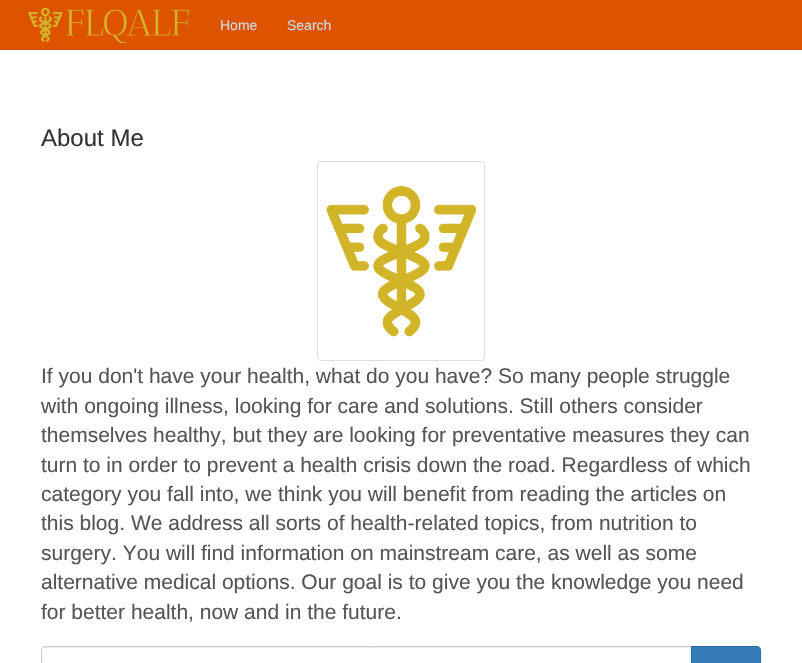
void draw(SkCanvas* canvas) {
	SkPaint fill;
	fill.setAntiAlias(true);
	auto makeFont = [&](const char* family, int weight, float size, bool italic = false) {
		SkFontStyle style(weight, SkFontStyle::kNormal_Width,
			italic ? SkFontStyle::kItalic_Slant : SkFontStyle::kUpright_Slant);
		SkFont result(fontMgr->matchFamilyStyle(family, style), size);
		result.setSubpixel(true);
		return result;
	};
	auto text = [&](const char* s, float x, float y, const SkFont& font) {
		canvas->drawString(s, x, y, font, fill);
	};
	auto box = [&](float l, float t, float r, float b) {
		canvas->drawRect(SkRect::MakeLTRB(l, t, r, b), fill);
	};
	auto picture = [&](const char* path, float l, float t, float r, float b) {
		auto image = SkImages::DeferredFromEncodedData(SkData::MakeFromFileName(path));
		canvas->drawImageRect(image, SkRect::MakeLTRB(l, t, r, b), SkSamplingOptions());
	};
	canvas->clear(0xFFFFFFFF);
	fill.setColor(0xFFDD5300);
	box(0, 0, 802, 50);
	picture("image0.png", 28, 7, 189, 43);
	fill.setStyle(SkPaint::kStroke_Style);
	fill.setStrokeWidth(1);
	fill.setColor(0xFFDDDDDD);
	canvas->drawRoundRect(SkRect::MakeLTRB(317.5f, 161.5f, 484.5f, 360.5f), 3.5f, 3.5f, fill);
	picture("image1.png", 326, 186, 477, 337);
	fill.setStyle(SkPaint::kFill_Style);
	fill.setColor(0xFFECECEC);
	canvas->drawPath(SkPathBuilder().moveTo(45, 648).lineTo(691, 648).lineTo(691, 647).lineTo(45, 647).cubicTo(43, 647, 42, 648, 42, 650).lineTo(42, 651).cubicTo(42, 649, 43, 648, 45, 648).close().detach(), fill);
	fill.setStyle(SkPaint::kStroke_Style);
	fill.setColor(0xFFCCCCCC);
	canvas->drawPath(SkPathBuilder().moveTo(45, 646.5f).lineTo(691.5f, 646.5f).lineTo(691.5f, 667.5f).lineTo(45, 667.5f).cubicTo(43, 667.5f, 41.5f, 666, 41.5f, 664).lineTo(41.5f, 650).cubicTo(41.5f, 648, 43, 646.5f, 45, 646.5f).close().detach(), fill);
	fill.setStyle(SkPaint::kFill_Style);
	fill.setColor(0xFF337AB7);
	canvas->drawPath(SkPathBuilder().moveTo(691.5f, 646.5f).lineTo(757, 646.5f).cubicTo(759, 646.5f, 760.5f, 648, 760.5f, 650).lineTo(760.5f, 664).cubicTo(760.5f, 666, 759, 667.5f, 757, 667.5f).lineTo(691.5f, 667.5f).close().detach(), fill);
	fill.setStyle(SkPaint::kStroke_Style);
	fill.setColor(0xFF2E6DA4);
	canvas->drawPath(SkPathBuilder().moveTo(691.5f, 646.5f).lineTo(757, 646.5f).cubicTo(759, 646.5f, 760.5f, 648, 760.5f, 650).lineTo(760.5f, 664).cubicTo(760.5f, 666, 759, 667.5f, 757, 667.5f).lineTo(691.5f, 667.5f).close().detach(), fill);
	auto font1 = makeFont("Liberation Sans", 400, 14);
	fill.setStyle(SkPaint::kFill_Style);
	fill.setColor(0xFFCDDDEB);
	text("Home", 220, 30, font1);
	text("Search", 287, 30, font1);
	auto font2 = makeFont("Liberation Sans", 400, 24);
	fill.setColor(0xFF333333);
	text("About Me", 41, 146, font2);
	auto font3 = makeFont("Liberation Sans", 400, 21);
	fill.setColor(0xFF555555);
	text("If you don't have your health, what do you have? So many people struggle", 41, 383, font3);
	text("with ongoing illness, looking for care and solutions. Still others consider", 41, 413, font3);
	text("themselves healthy, but they are looking for preventative measures they can", 41, 442, font3);
	text("turn to in order to prevent a health crisis down the road. Regardless of which", 41, 472, font3);
	text("category you fall into, we think you will benefit from reading the articles on", 41, 501, font3);
	text("this blog. We address all sorts of health-related topics, from nutrition to", 41, 530, font3);
	text("surgery. You will find information on mainstream care, as well as some", 41, 560, font3);
	text("alternative medical options. Our goal is to give you the knowledge you need", 41, 589, font3);
	text("for better health, now and in the future.", 41, 619, font3);
}
